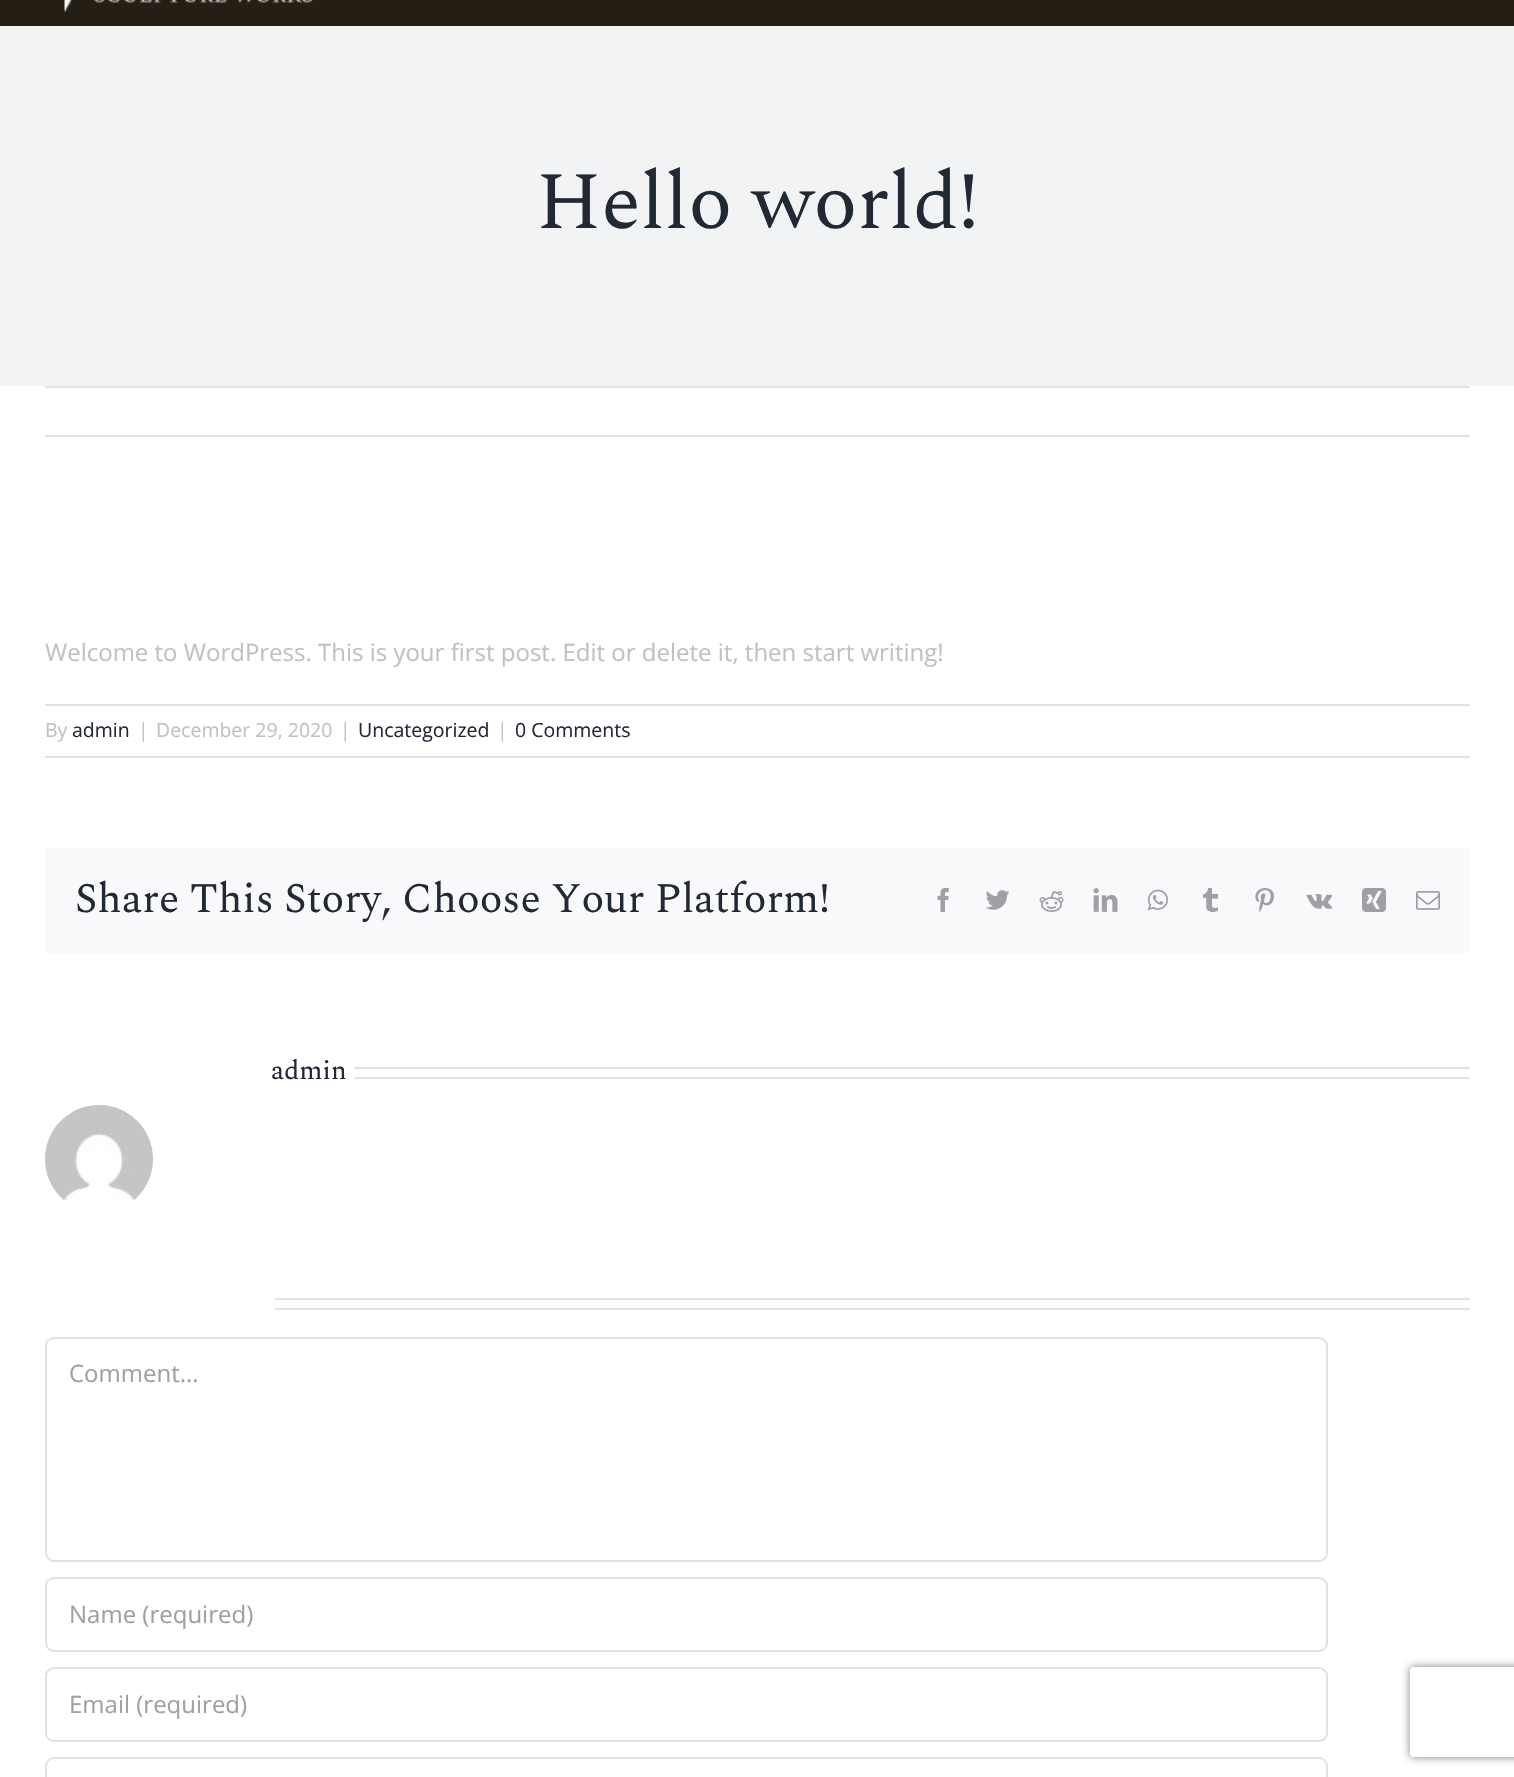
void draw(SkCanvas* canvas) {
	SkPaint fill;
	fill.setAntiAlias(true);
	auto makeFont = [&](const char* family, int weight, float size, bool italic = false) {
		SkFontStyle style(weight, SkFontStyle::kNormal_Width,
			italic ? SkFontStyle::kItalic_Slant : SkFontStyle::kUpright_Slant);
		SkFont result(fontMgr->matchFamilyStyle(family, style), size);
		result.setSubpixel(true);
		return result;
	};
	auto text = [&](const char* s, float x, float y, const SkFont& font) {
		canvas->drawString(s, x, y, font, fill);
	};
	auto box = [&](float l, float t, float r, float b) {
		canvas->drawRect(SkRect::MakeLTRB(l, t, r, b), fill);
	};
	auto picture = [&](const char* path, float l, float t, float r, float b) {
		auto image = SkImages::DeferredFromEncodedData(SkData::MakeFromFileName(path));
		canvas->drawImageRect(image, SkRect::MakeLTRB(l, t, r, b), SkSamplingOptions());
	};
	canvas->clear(0xFFF2F3F5);
	fill.setColor(0xFF251E14);
	box(0, 0, 1514, 26);
	picture("image0.png", 64, 0, 313, 12);
	fill.setColor(0xFFFFFFFF);
	box(0, 386, 1514, 1777);
	fill.setColor(0xFFE2E2E2);
	box(45, 386, 1470, 388);
	box(45, 435, 1470, 437);
	box(45, 704, 1470, 706);
	box(45, 756, 1470, 758);
	fill.setColor(0xFFF9F9FB);
	box(45, 848, 1470, 953);
	picture("image1.png", 937, 888, 949, 912);
	picture("image2.png", 985, 890, 1010, 910);
	picture("image3.png", 1039, 891, 1064, 912);
	picture("image4.png", 1093, 888, 1118, 912);
	picture("image5.png", 1147, 889, 1169, 911);
	picture("image6.png", 1203, 888, 1218, 912);
	picture("image7.png", 1255, 888, 1274, 912);
	picture("image8.png", 1306, 894, 1333, 909);
	picture("image9.png", 1362, 888, 1386, 912);
	picture("image10.png", 1416, 891, 1440, 910);
	fill.setColor(0xFFE2E2E2);
	box(354, 1067, 1470, 1069);
	box(354, 1077, 1470, 1079);
	picture("image11.png", 45, 1105, 153, 1201);
	box(275, 1298, 1470, 1300);
	box(275, 1308, 1470, 1310);
	fill.setStyle(SkPaint::kStroke_Style);
	fill.setStrokeWidth(2);
	canvas->drawRoundRect(SkRect::MakeLTRB(46, 1338, 1327, 1561), 8, 8, fill);
	canvas->drawRoundRect(SkRect::MakeLTRB(46, 1578, 1327, 1651), 8, 8, fill);
	canvas->drawRoundRect(SkRect::MakeLTRB(46, 1668, 1327, 1741), 8, 8, fill);
	canvas->drawRoundRect(SkRect::MakeLTRB(46, 1758, 1327, 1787), 8, 8, fill);
	canvas->save();
	canvas->clipPath(SkPathBuilder(SkPathFillType::kEvenOdd).moveTo(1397, 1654).lineTo(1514, 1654).lineTo(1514, 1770).lineTo(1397, 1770).close().moveTo(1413, 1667).lineTo(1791, 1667).cubicTo(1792.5f, 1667, 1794, 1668.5f, 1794, 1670).lineTo(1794, 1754).cubicTo(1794, 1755.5f, 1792.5f, 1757, 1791, 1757).lineTo(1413, 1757).cubicTo(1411.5f, 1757, 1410, 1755.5f, 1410, 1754).lineTo(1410, 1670).cubicTo(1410, 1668.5f, 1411.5f, 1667, 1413, 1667).close().detach(), true);
	fill.setStyle(SkPaint::kFill_Style);
	fill.setColor(0xFF808080);
	fill.setMaskFilter(SkMaskFilter::MakeBlur(kNormal_SkBlurStyle, 4));
	canvas->drawRoundRect(SkRect::MakeLTRB(1410, 1667, 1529, 1757), 3, 3, fill);
	fill.setMaskFilter(nullptr);
	canvas->restore();
	auto font1 = makeFont("Spectral", 400, 81);
	fill.setColor(0xFF212934);
	text("Hello world!", 536, 228, font1);
	auto font2 = makeFont("Open Sans", 400, 24);
	fill.setColor(0xFFC1C1C1);
	text("Welcome to WordPress. This is your first post. Edit or delete it, then start writing!", 45, 661, font2);
	auto font3 = makeFont("Open Sans", 400, 19.5f);
	text("By", 45, 737, font3);
	fill.setColor(0xFF212934);
	text("admin", 72, 737, font3);
	fill.setColor(0xFFC1C1C1);
	text("|", 138, 737, font3);
	text("December 29, 2020", 156, 737, font3);
	text("|", 340, 737, font3);
	fill.setColor(0xFF212934);
	text("Uncategorized", 358, 737, font3);
	fill.setColor(0xFFC1C1C1);
	text("|", 497, 737, font3);
	fill.setColor(0xFF212934);
	text("0 Comments", 515, 737, font3);
	auto font4 = makeFont("Spectral", 400, 42);
	text("Share This Story, Choose Your Platform!", 75, 912, font4);
	auto font5 = makeFont("Spectral", 400, 27);
	text("admin", 271, 1079, font5);
	fill.setColor(0xFF9EA0A4);
	text("Comment...", 69, 1382, font2);
	text("Name (required)", 69, 1623, font2);
	text("Email (required)", 69, 1713, font2);
}
